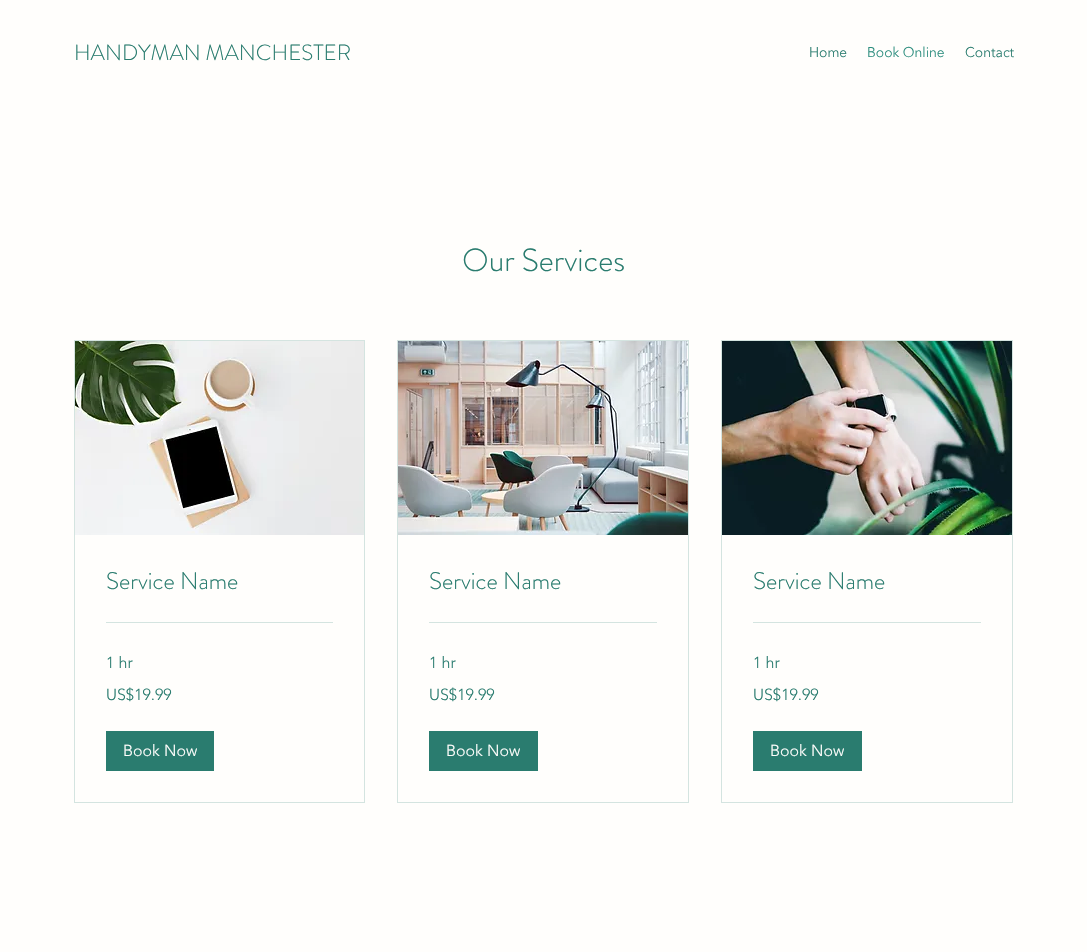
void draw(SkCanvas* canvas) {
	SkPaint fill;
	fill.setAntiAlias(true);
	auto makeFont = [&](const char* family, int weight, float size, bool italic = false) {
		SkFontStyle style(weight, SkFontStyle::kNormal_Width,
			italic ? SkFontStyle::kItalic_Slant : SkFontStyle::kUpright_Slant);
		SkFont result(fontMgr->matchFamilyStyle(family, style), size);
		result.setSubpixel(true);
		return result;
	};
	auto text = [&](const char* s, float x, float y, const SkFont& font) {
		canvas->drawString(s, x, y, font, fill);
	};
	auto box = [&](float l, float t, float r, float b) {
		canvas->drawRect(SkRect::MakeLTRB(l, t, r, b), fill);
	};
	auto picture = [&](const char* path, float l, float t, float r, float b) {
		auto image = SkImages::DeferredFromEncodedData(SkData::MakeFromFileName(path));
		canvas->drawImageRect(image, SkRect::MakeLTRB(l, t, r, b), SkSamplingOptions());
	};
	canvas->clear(0xFFFFFEFC);
	fill.setStyle(SkPaint::kStroke_Style);
	fill.setStrokeWidth(1);
	fill.setColor(0xFFD4E4E0);
	canvas->drawRect(SkRect::MakeLTRB(74.5f, 340.5f, 364.5f, 802.5f), fill);
	picture("image0.png", 75, 341, 364, 535);
	fill.setStyle(SkPaint::kFill_Style);
	box(106, 622, 333, 623);
	fill.setColor(0xFF2A7C6F);
	box(106, 731, 214, 771);
	fill.setStyle(SkPaint::kStroke_Style);
	fill.setColor(0xFFD4E4E0);
	canvas->drawRect(SkRect::MakeLTRB(397.5f, 340.5f, 688.5f, 802.5f), fill);
	picture("image1.png", 398, 341, 688, 535);
	fill.setStyle(SkPaint::kFill_Style);
	box(429, 622, 657, 623);
	fill.setColor(0xFF2A7C6F);
	box(429, 731, 538, 771);
	fill.setStyle(SkPaint::kStroke_Style);
	fill.setColor(0xFFD4E4E0);
	canvas->drawRect(SkRect::MakeLTRB(721.5f, 340.5f, 1012.5f, 802.5f), fill);
	picture("image2.png", 722, 341, 1012, 535);
	fill.setStyle(SkPaint::kFill_Style);
	box(753, 622, 981, 623);
	fill.setColor(0xFF2A7C6F);
	box(753, 731, 862, 771);
	auto font1 = makeFont("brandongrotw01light", 300, 22);
	text("HANDYMAN MANCHESTER", 74, 60, font1);
	auto font2 = makeFont("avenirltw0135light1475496", 300, 14);
	text("Home", 809, 57, font2);
	fill.setColor(0xFF2C8D7E);
	text("Book Online", 867, 57, font2);
	fill.setColor(0xFF2A7C6F);
	text("Contact", 965, 57, font2);
	auto font3 = makeFont("brandongrotw01light", 300, 32);
	text("Our Services", 462, 271, font3);
	auto font4 = makeFont("brandongrotw01light", 300, 24);
	text("Service Name", 106, 589, font4);
	auto font5 = makeFont("avenirltw0135light1475496", 300, 16);
	text("1 hr", 106, 668, font5);
	text("US$19.99", 106, 700, font5);
	fill.setColor(0xFFFFFEFC);
	text("Book Now", 123, 756, font5);
	fill.setColor(0xFF2A7C6F);
	text("Service Name", 429, 589, font4);
	text("1 hr", 429, 668, font5);
	text("US$19.99", 429, 700, font5);
	fill.setColor(0xFFFFFEFC);
	text("Book Now", 446, 756, font5);
	fill.setColor(0xFF2A7C6F);
	text("Service Name", 753, 589, font4);
	text("1 hr", 753, 668, font5);
	text("US$19.99", 753, 700, font5);
	fill.setColor(0xFFFFFEFC);
	text("Book Now", 770, 756, font5);
}
